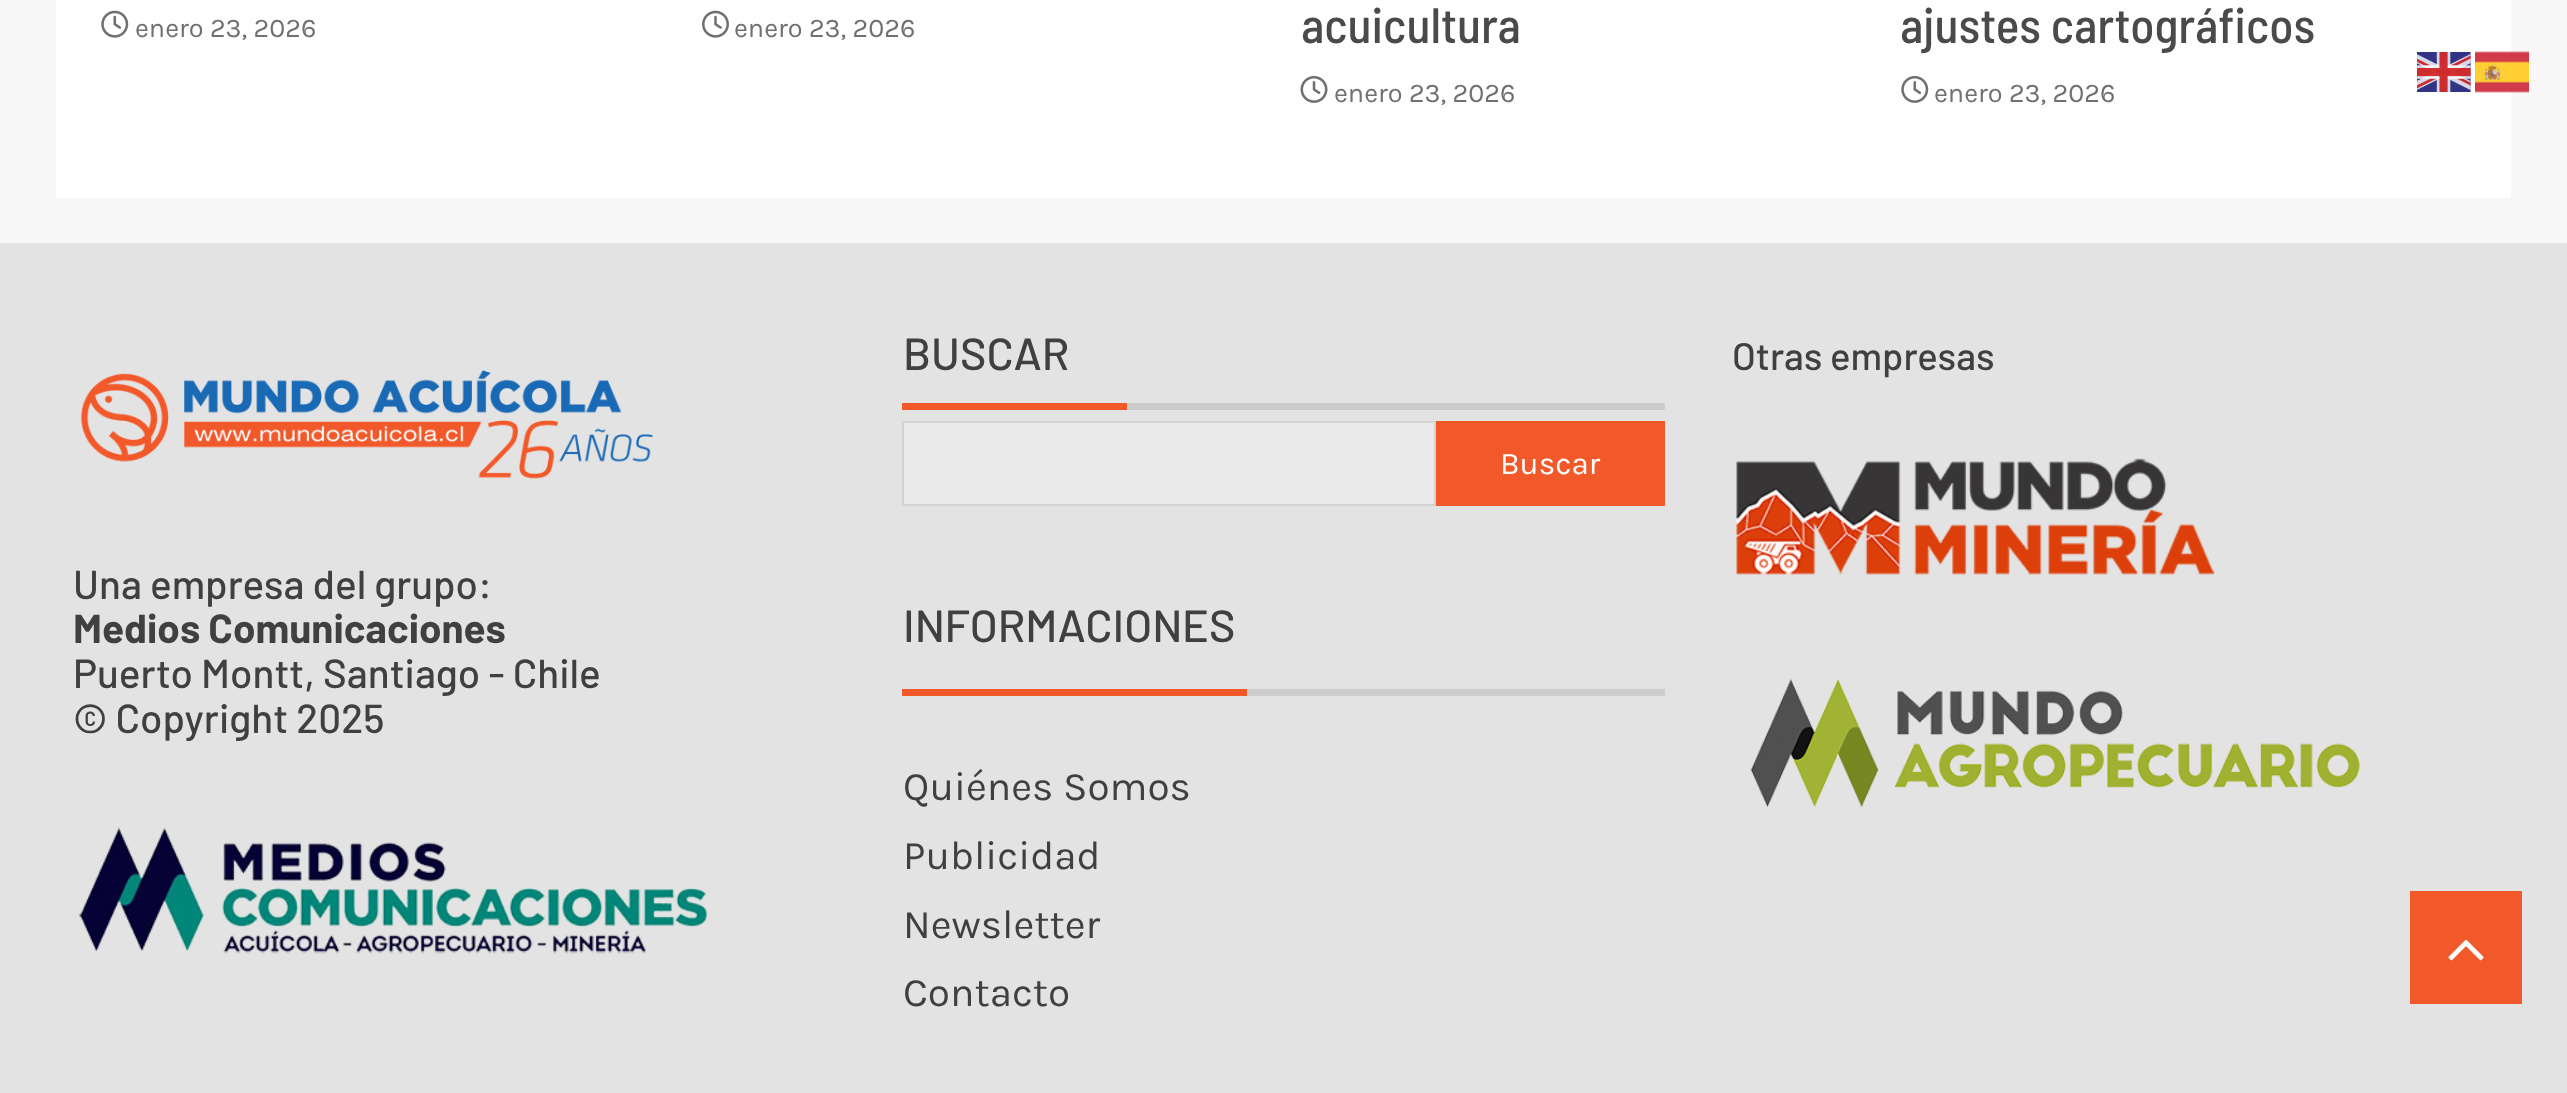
(async () => {
    const canvas = document.querySelector("canvas");
    canvas.width = 2567;
    canvas.height = 1093;
    const context = canvas.getContext("2d");
    context.miterLimit = 4;
    context.fontKerning = "normal";
    function write(s, x, y, font, color) {
        context.font = font;
        context.fillStyle = color;
        context.fillText(s, x, y);
    }
    function block(x, y, w, h, color) {
        context.fillStyle = color;
        context.fillRect(x, y, w, h);
    }
    async function photo(src, x, y, w, h) {
        const img = new Image();
        img.src = src;
        await img.decode();
        context.drawImage(img, x, y, w, h);
    }

    block(0, 0, 2567, 1093, "rgb(247, 247, 247)");
    block(56, 0, 2455, 198, "rgb(255, 255, 255)");
    await photo("media/1.png", 101, 10, 28, 28);
    write("enero 23, 2026", 135, 37, "27px Karla", "rgb(112, 112, 112)");
    await photo("media/2.png", 702, 10, 27, 28);
    write("enero 23, 2026", 734, 37, "27px Karla", "rgb(112, 112, 112)");
    write("acuicultura", 1301, 43, "500 49.5px Barlow Semi Condensed", "rgb(74, 74, 74)");
    await photo("media/3.png", 1300, 76, 28, 27);
    write("enero 23, 2026", 1334, 102, "27px Karla", "rgb(112, 112, 112)");
    write("ajustes cartográficos", 1900, 43, "500 49.5px Barlow Semi Condensed", "rgb(74, 74, 74)");
    await photo("media/4.png", 1901, 75, 28, 28);
    write("enero 23, 2026", 1934, 102, "27px Karla", "rgb(112, 112, 112)");
    block(0, 243, 2567, 850, "rgb(227, 227, 227)");
    write("BUSCAR", 903, 370, "500 45px Barlow", "rgb(64, 64, 64)");
    block(902, 403, 225, 7, "rgb(241, 89, 42)");
    block(1127, 403, 538, 7, "rgb(204, 204, 204)");
    context.fillStyle = "rgb(234, 234, 234)";
    context.beginPath();
    context.rect(903, 422, 532, 83);
    context.fill();
    context.strokeStyle = "rgb(211, 211, 211)";
    context.lineWidth = 2;
    context.stroke();
    block(1436, 421, 229, 85, "rgb(241, 89, 42)");
    write("Buscar", 1500, 474, "31.5px Karla", "rgb(255, 255, 255)");
    write("INFORMACIONES", 903, 642, "500 45px Barlow", "rgb(64, 64, 64)");
    block(902, 689, 345, 7, "rgb(241, 89, 42)");
    block(1247, 689, 418, 7, "rgb(204, 204, 204)");
    write("Quiénes Somos", 903, 800, "40.5px Karla", "rgb(64, 64, 64)");
    write("Publicidad", 903, 869, "40.5px Karla", "rgb(64, 64, 64)");
    write("Newsletter", 903, 938, "40.5px Karla", "rgb(64, 64, 64)");
    write("Contacto", 903, 1006, "40.5px Karla", "rgb(64, 64, 64)");
    write("Otras empresas", 1732, 370, "500 38.25px Barlow", "rgb(64, 64, 64)");
    await photo("media/5.png", 1736, 458, 479, 117);
    await photo("media/6.png", 1750, 679, 610, 129);
    await photo("media/7.png", 80, 370, 573, 109);
    write("Una empresa del grupo:", 73, 599, "500 40.5px Barlow", "rgb(64, 64, 64)");
    write("Medios Comunicaciones", 73, 643, "bold 40.5px Barlow", "rgb(64, 64, 64)");
    write("Puerto Montt, Santiago - Chile", 73, 688, "500 40.5px Barlow", "rgb(64, 64, 64)");
    write("© Copyright 2025", 73, 733, "500 40.5px Barlow", "rgb(64, 64, 64)");
    await photo("media/8.png", 79, 827, 629, 127);
    await photo("media/9.png", 2417, 52, 54, 40);
    await photo("media/10.png", 2475, 51, 54, 42);
    block(2410, 891, 112, 113, "rgb(241, 89, 42)");
    await photo("media/11.png", 2448, 939, 36, 22);
})();
